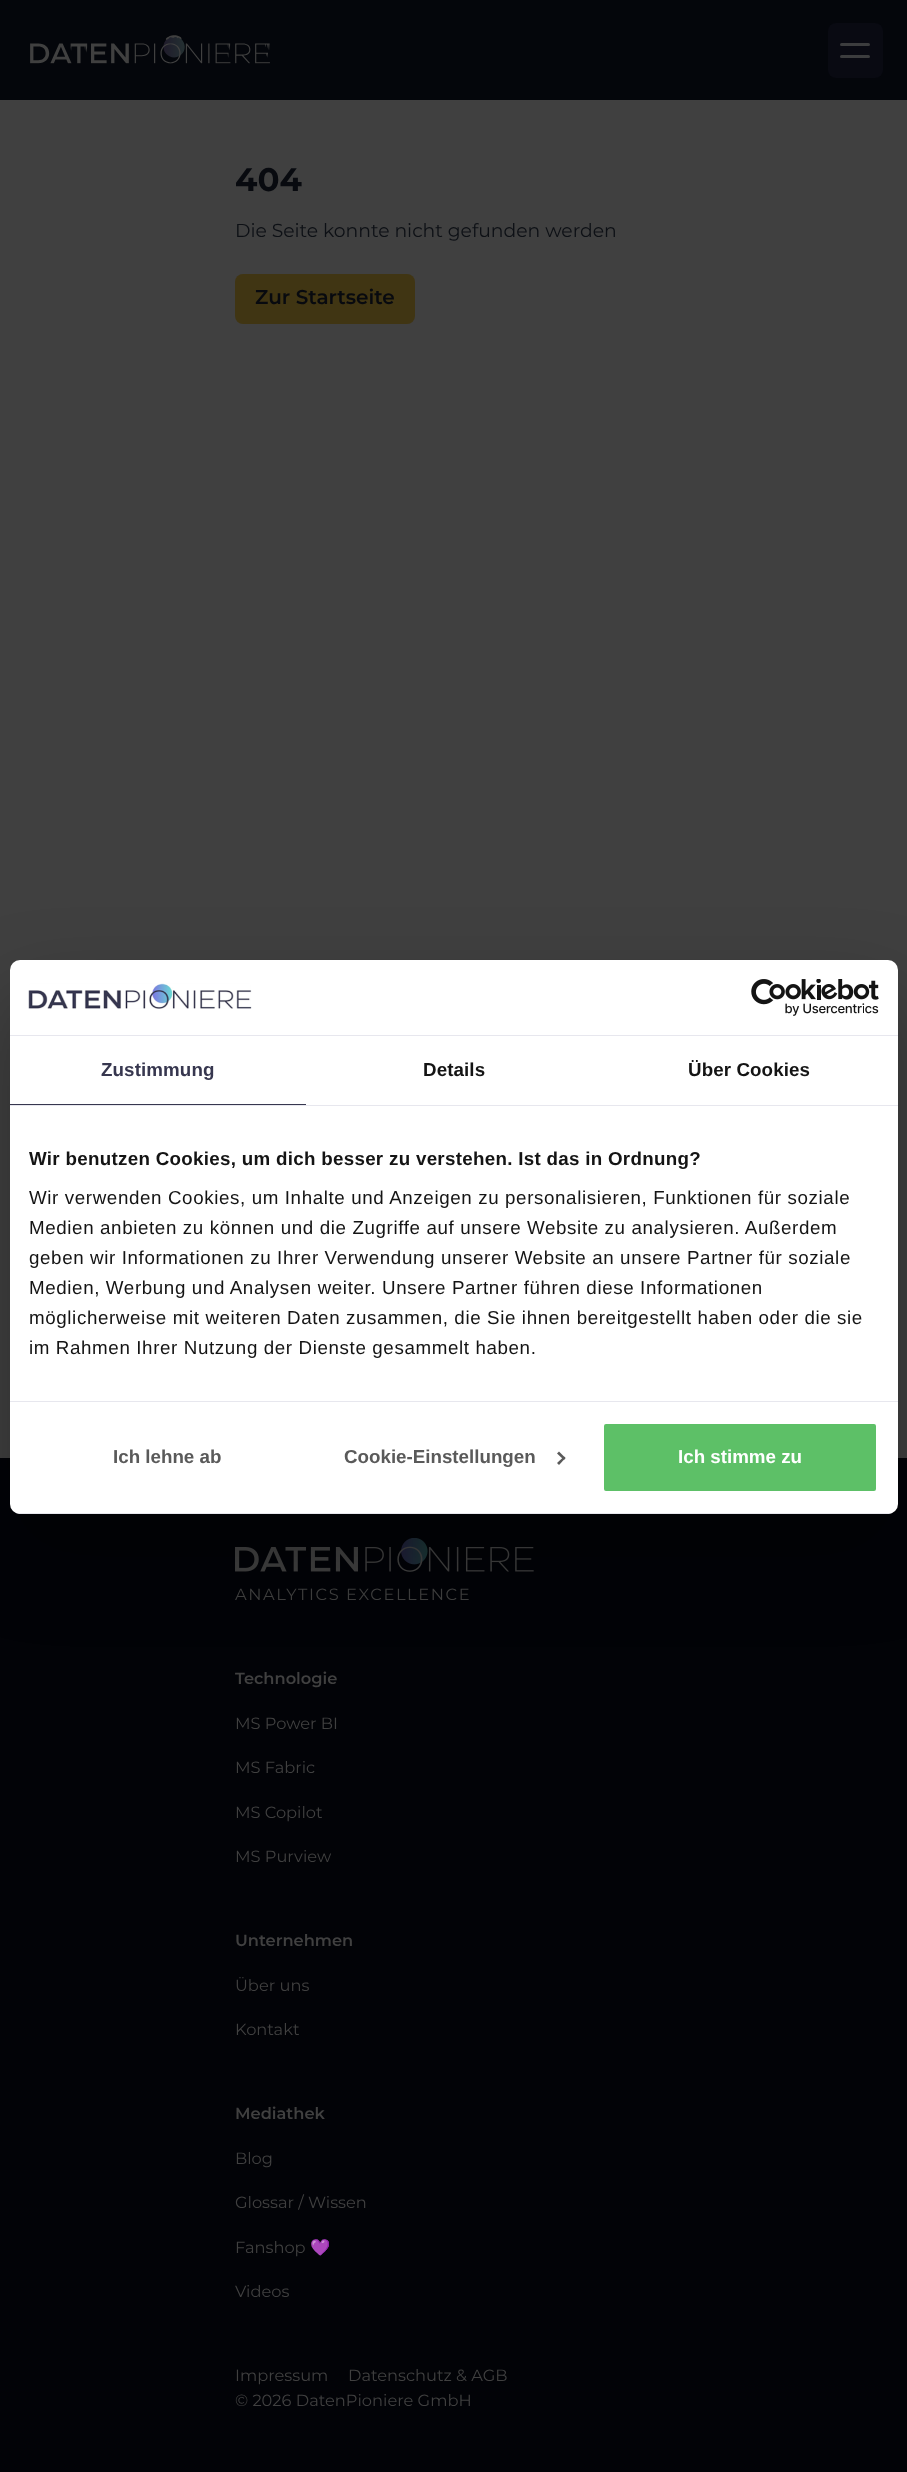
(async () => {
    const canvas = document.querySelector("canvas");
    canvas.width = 907;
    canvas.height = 2472;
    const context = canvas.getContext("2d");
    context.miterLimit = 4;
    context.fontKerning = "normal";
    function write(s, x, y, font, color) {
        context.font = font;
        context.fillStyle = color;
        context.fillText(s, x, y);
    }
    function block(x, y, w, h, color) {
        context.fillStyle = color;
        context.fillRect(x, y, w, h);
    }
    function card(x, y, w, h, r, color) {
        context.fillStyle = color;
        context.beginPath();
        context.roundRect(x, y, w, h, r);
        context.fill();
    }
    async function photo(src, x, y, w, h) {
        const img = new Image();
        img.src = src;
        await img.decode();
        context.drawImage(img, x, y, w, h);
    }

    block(0, 0, 907, 2472, "rgb(64, 64, 64)");
    block(0, 0, 907, 100, "rgb(4, 6, 11)");
    await photo("media/1.png", 30, 35, 240, 29);
    card(828, 23, 55, 55, 8, "rgb(9, 10, 18)");
    card(840, 43, 30, 3, 1.5, "rgb(60, 61, 62)");
    card(840, 55, 30, 3, 1.5, "rgb(60, 61, 62)");
    write("404", 235, 191, "bold 32.5px Montserrat", "rgb(8, 10, 15)");
    write("Die Seite konnte nicht gefunden werden", 235, 237, "18.75px Montserrat", "rgb(13, 16, 21)");
    card(235, 274, 180, 50, 8, "rgb(64, 53, 19)");
    write("Zur Startseite", 255, 304, "600 20px Montserrat", "rgb(8, 10, 15)");
    block(0, 1458, 907, 1014, "rgb(2, 3, 7)");
    await photo("media/2.png", 235, 1538, 299, 34);
    context.letterSpacing = "1.6px";
    write("ANALYTICS EXCELLENCE", 235, 1600, "16.25px Montserrat", "rgb(64, 64, 64)");
    context.letterSpacing = "0px";
    write("Technologie", 235, 1684, "600 16.25px Montserrat", "rgb(64, 64, 64)");
    write("MS Power BI", 235, 1729, "16.25px Montserrat", "rgb(64, 64, 64)");
    write("MS Fabric", 235, 1773, "16.25px Montserrat", "rgb(64, 64, 64)");
    write("MS Copilot", 235, 1818, "16.25px Montserrat", "rgb(64, 64, 64)");
    write("MS Purview", 235, 1862, "16.25px Montserrat", "rgb(64, 64, 64)");
    write("Unternehmen", 235, 1946, "600 16.25px Montserrat", "rgb(64, 64, 64)");
    write("Über uns", 235, 1991, "16.25px Montserrat", "rgb(64, 64, 64)");
    write("Kontakt", 235, 2035, "16.25px Montserrat", "rgb(64, 64, 64)");
    write("Mediathek", 235, 2119, "600 16.25px Montserrat", "rgb(64, 64, 64)");
    write("Blog", 235, 2164, "16.25px Montserrat", "rgb(64, 64, 64)");
    write("Glossar / Wissen", 235, 2208, "16.25px Montserrat", "rgb(64, 64, 64)");
    write("Fanshop", 235, 2253, "16.25px Montserrat", "rgb(64, 64, 64)");
    write("💜", 310, 2253, "16.25px Noto Color Emoji", "rgb(64, 64, 64)");
    write("Videos", 235, 2297, "16.25px Montserrat", "rgb(64, 64, 64)");
    write("Impressum", 235, 2381, "16.25px Montserrat", "rgb(64, 64, 64)");
    write("Datenschutz & AGB", 348, 2381, "16.25px Montserrat", "rgb(64, 64, 64)");
    write("© 2026 DatenPioniere GmbH", 235, 2406, "16.25px Montserrat", "rgb(64, 64, 64)");
    context.fillStyle = "rgba(0, 0, 0, 0.3)";
    context.filter = "blur(42.5px)";
    context.beginPath();
    context.roundRect(10, 1000, 888, 554, 10);
    context.fill();
    context.filter = "none";
    card(10, 960, 888, 554, 10, "rgb(255, 255, 255)");
    block(10, 1035, 888, 1, "rgb(231, 231, 238)");
    await photo("media/3.png", 28, 983, 224, 26);
    await photo("media/4.png", 751, 979, 128, 37);
    block(10, 1105, 888, 1, "rgb(231, 231, 238)");
    block(10, 1104, 296, 1, "rgb(55, 55, 79)");
    context.letterSpacing = "0.1px";
    write("Zustimmung", 101, 1076, "bold 18.75px Liberation Sans", "rgb(55, 55, 79)");
    write("Details", 423, 1076, "bold 18.75px Liberation Sans", "rgb(20, 20, 20)");
    write("Über Cookies", 688, 1076, "bold 18.75px Liberation Sans", "rgb(20, 20, 20)");
    block(10, 1401, 888, 1, "rgb(231, 231, 238)");
    context.letterSpacing = "0.3px";
    write("Wir benutzen Cookies, um dich besser zu verstehen. Ist das in Ordnung?", 29, 1165, "bold 18.75px Liberation Sans", "rgb(20, 20, 20)");
    context.letterSpacing = "0.62px";
    write("Wir verwenden Cookies, um Inhalte und Anzeigen zu personalisieren, Funktionen für soziale", 29, 1204, "18.75px Liberation Sans", "rgb(20, 20, 20)");
    write("Medien anbieten zu können und die Zugriffe auf unsere Website zu analysieren. Außerdem", 29, 1234, "18.75px Liberation Sans", "rgb(20, 20, 20)");
    write("geben wir Informationen zu Ihrer Verwendung unserer Website an unsere Partner für soziale", 29, 1264, "18.75px Liberation Sans", "rgb(20, 20, 20)");
    write("Medien, Werbung und Analysen weiter. Unsere Partner führen diese Informationen", 29, 1294, "18.75px Liberation Sans", "rgb(20, 20, 20)");
    write("möglicherweise mit weiteren Daten zusammen, die Sie ihnen bereitgestellt haben oder die sie", 29, 1324, "18.75px Liberation Sans", "rgb(20, 20, 20)");
    write("im Rahmen Ihrer Nutzung der Dienste gesammelt haben.", 29, 1354, "18.75px Liberation Sans", "rgb(20, 20, 20)");
    context.save();
    context.beginPath();
    context.roundRect(10, 960, 888, 554, 10);
    context.clip();
    block(10, 1513, 888, 1, "rgb(231, 231, 238)");
    context.restore();
    context.letterSpacing = "0px";
    write("Ich lehne ab", 113, 1463, "bold 18.75px Liberation Sans", "rgb(90, 90, 90)");
    write("Cookie-Einstellungen", 344, 1463, "bold 18.75px Liberation Sans", "rgb(90, 90, 90)");
    context.beginPath();
    context.moveTo(559, 1451.5);
    context.lineTo(565.5, 1458);
    context.lineTo(564, 1460);
    context.lineTo(557, 1453.5);
    context.closePath();
    context.fill();
    context.beginPath();
    context.moveTo(564, 1456.5);
    context.lineTo(565.5, 1458);
    context.lineTo(559, 1465);
    context.lineTo(557, 1463);
    context.closePath();
    context.fill();
    context.fillStyle = "rgb(93, 192, 103)";
    context.beginPath();
    context.roundRect(602.5, 1422.5, 275, 70, 3.5);
    context.fill();
    context.strokeStyle = "rgb(255, 255, 255)";
    context.lineWidth = 3;
    context.stroke();
    write("Ich stimme zu", 678, 1463, "bold 18.75px Liberation Sans", "rgb(255, 255, 255)");
})();
